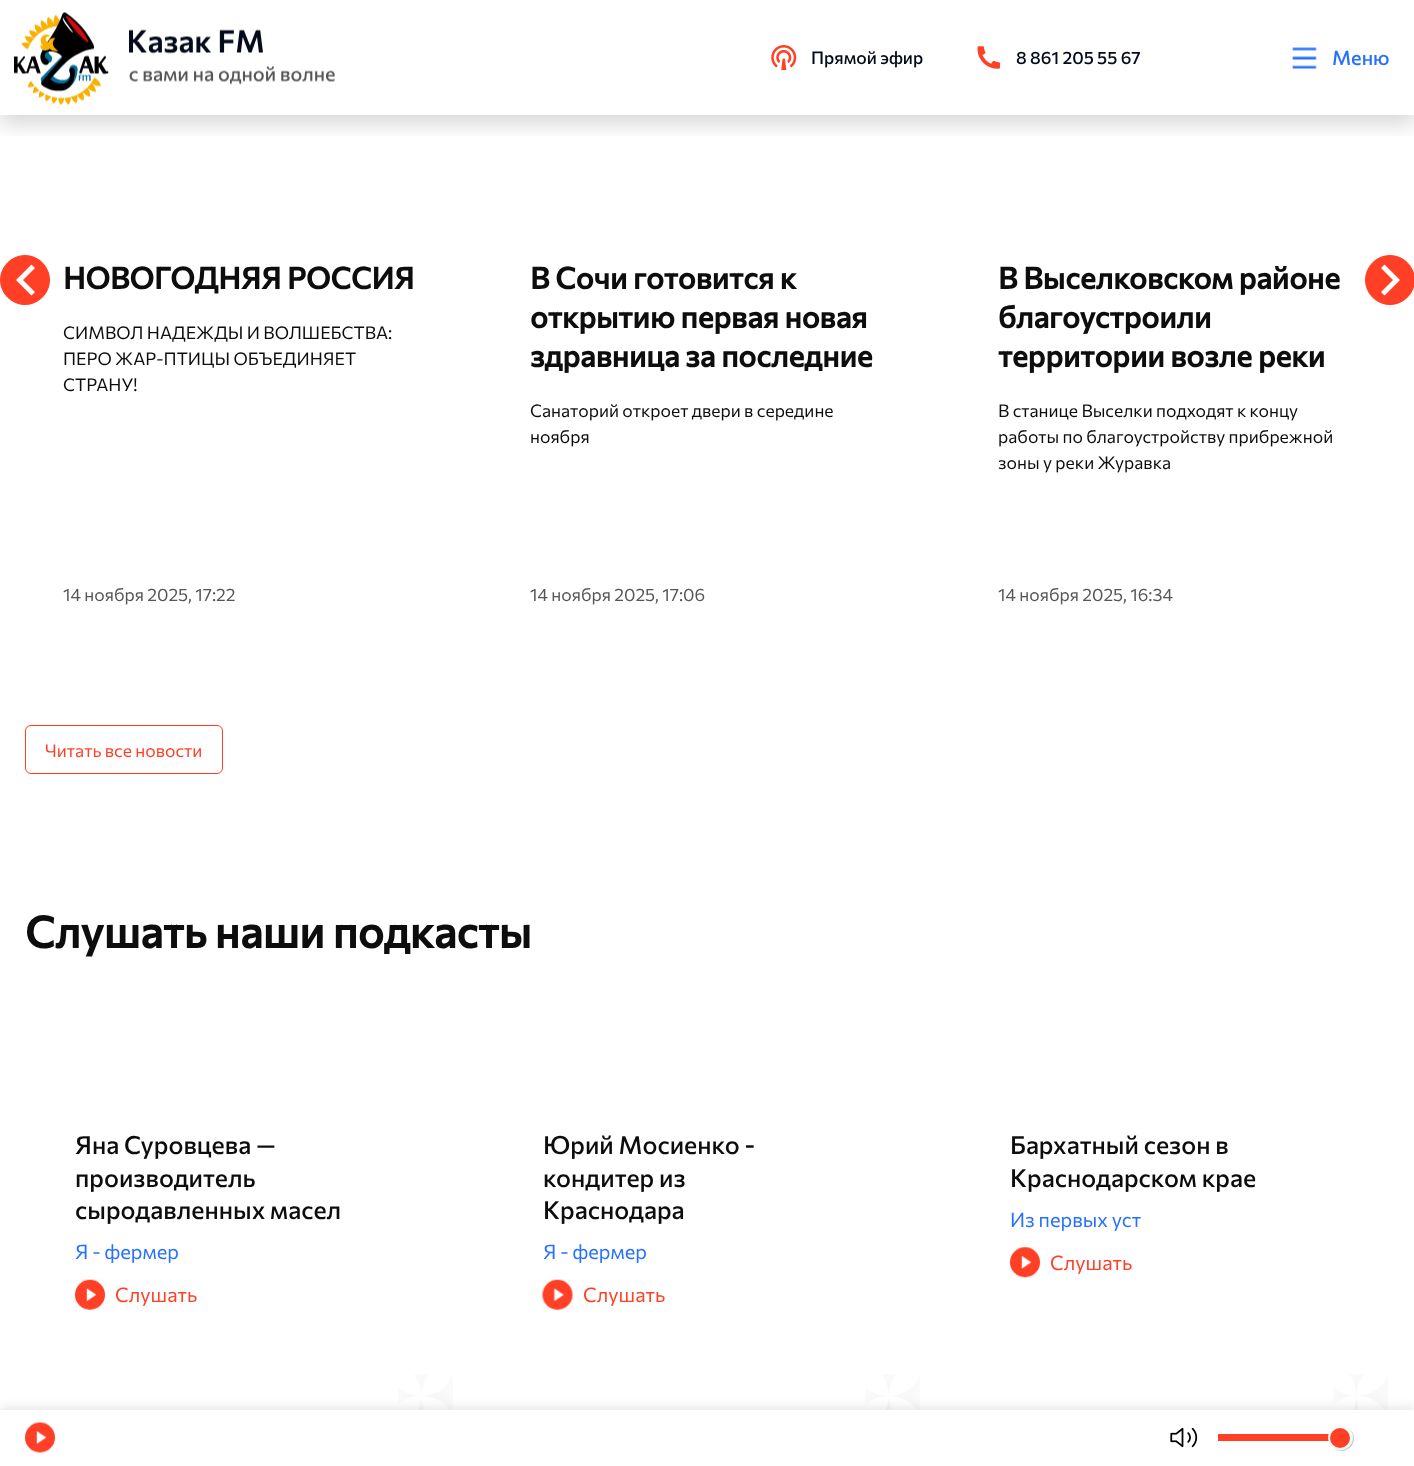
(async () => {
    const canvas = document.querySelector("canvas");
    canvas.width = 1414;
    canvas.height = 1466;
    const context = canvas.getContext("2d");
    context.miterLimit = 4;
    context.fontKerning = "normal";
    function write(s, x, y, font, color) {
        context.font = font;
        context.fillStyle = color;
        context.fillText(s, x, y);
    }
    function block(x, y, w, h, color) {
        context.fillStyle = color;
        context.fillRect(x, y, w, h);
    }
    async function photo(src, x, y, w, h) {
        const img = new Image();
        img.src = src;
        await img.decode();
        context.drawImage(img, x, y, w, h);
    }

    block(0, 0, 1414, 1466, "rgb(255, 255, 255)");
    context.save();
    context.beginPath();
    context.rect(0, 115, 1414, 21);
    context.clip();
    context.fillStyle = "rgba(0, 0, 0, 0.15)";
    context.filter = "blur(10px)";
    context.beginPath();
    context.rect(0, 10, 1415, 115);
    context.fill();
    context.filter = "none";
    context.restore();
    await photo("media/1.png", 14, 12, 95, 94);
    await photo("media/2.png", 129, 29, 206, 56);
    await photo("media/3.png", 771, 45, 26, 25);
    write("Прямой эфир", 811, 64, "500 17.5px Commissioner", "rgb(4, 11, 26)");
    await photo("media/4.png", 977, 46, 23, 23);
    write("8 861 205 55 67", 1016, 64, "500 17.5px Commissioner", "rgb(4, 11, 26)");
    await photo("media/5.png", 1292, 47, 25, 22);
    write("Меню", 1332, 65, "500 20px Commissioner", "rgb(38, 112, 255)");
    context.fillStyle = "rgb(255, 64, 38)";
    context.beginPath();
    context.arc(25, 280, 24.5, 0, Math.PI * 2);
    context.fill();
    context.strokeStyle = "rgb(255, 64, 38)";
    context.stroke();
    context.fillStyle = "rgb(255, 255, 255)";
    context.beginPath();
    context.moveTo(23, 280);
    context.lineTo(35, 268);
    context.lineTo(31.5, 264.5);
    context.lineTo(16, 280);
    context.lineTo(31.5, 295.5);
    context.lineTo(35, 292);
    context.closePath();
    context.fill();
    write("НОВОГОДНЯЯ РОССИЯ", 63, 289, "bold 30px Commissioner", "rgb(13, 13, 13)");
    write("СИМВОЛ НАДЕЖДЫ И ВОЛШЕБСТВА:", 63, 339, "17.5px Commissioner", "rgb(13, 13, 13)");
    write("ПЕРО ЖАР-ПТИЦЫ ОБЪЕДИНЯЕТ", 63, 365, "17.5px Commissioner", "rgb(13, 13, 13)");
    write("СТРАНУ!", 63, 391, "17.5px Commissioner", "rgb(13, 13, 13)");
    write("14 ноября 2025, 17:22", 63, 601, "17.5px Commissioner", "rgb(86, 86, 86)");
    write("В Сочи готовится к", 530, 289, "bold 30px Commissioner", "rgb(13, 13, 13)");
    write("открытию первая новая", 530, 328, "bold 30px Commissioner", "rgb(13, 13, 13)");
    write("здравница за последние", 530, 367, "bold 30px Commissioner", "rgb(13, 13, 13)");
    write("Санаторий откроет двери в середине", 530, 417, "17.5px Commissioner", "rgb(13, 13, 13)");
    write("ноября", 530, 443, "17.5px Commissioner", "rgb(13, 13, 13)");
    write("14 ноября 2025, 17:06", 530, 601, "17.5px Commissioner", "rgb(86, 86, 86)");
    write("В Выселковском районе", 998, 289, "bold 30px Commissioner", "rgb(13, 13, 13)");
    write("благоустроили", 998, 328, "bold 30px Commissioner", "rgb(13, 13, 13)");
    write("территории возле реки", 998, 367, "bold 30px Commissioner", "rgb(13, 13, 13)");
    write("В станице Выселки подходят к концу", 998, 417, "17.5px Commissioner", "rgb(13, 13, 13)");
    write("работы по благоустройству прибрежной", 998, 443, "17.5px Commissioner", "rgb(13, 13, 13)");
    write("зоны у реки Журавка", 998, 469, "17.5px Commissioner", "rgb(13, 13, 13)");
    write("14 ноября 2025, 16:34", 998, 601, "17.5px Commissioner", "rgb(86, 86, 86)");
    context.fillStyle = "rgb(255, 64, 38)";
    context.beginPath();
    context.arc(1390, 280, 24.5, 0, Math.PI * 2);
    context.fill();
    context.stroke();
    context.fillStyle = "rgb(255, 255, 255)";
    context.beginPath();
    context.moveTo(1393, 280);
    context.lineTo(1381, 268);
    context.lineTo(1384.5, 264.5);
    context.lineTo(1400, 280);
    context.lineTo(1384.5, 295.5);
    context.lineTo(1381, 292);
    context.closePath();
    context.fill();
    context.beginPath();
    context.roundRect(25.5, 725.5, 197, 48, 5.5);
    context.stroke();
    write("Читать все новости", 45, 757, "17.5px Commissioner", "rgb(255, 64, 38)");
    write("Слушать наши подкасты", 25, 948, "bold 43.75px Commissioner", "rgb(13, 13, 13)");
    write("Яна Суровцева —", 75, 1154, "500 25px Commissioner", "rgb(13, 13, 13)");
    write("производитель", 75, 1187, "500 25px Commissioner", "rgb(13, 13, 13)");
    write("сыродавленных масел", 75, 1219, "500 25px Commissioner", "rgb(13, 13, 13)");
    write("Я - фермер", 75, 1259, "20px Commissioner", "rgb(38, 112, 255)");
    await photo("media/6.png", 75, 1279, 30, 31);
    write("Слушать", 115, 1302, "20px Commissioner", "rgb(255, 64, 38)");
    await photo("media/7.png", 398, 1374, 55, 36);
    write("Юрий Мосиенко -", 543, 1154, "500 25px Commissioner", "rgb(13, 13, 13)");
    write("кондитер из", 543, 1187, "500 25px Commissioner", "rgb(13, 13, 13)");
    write("Краснодара", 543, 1219, "500 25px Commissioner", "rgb(13, 13, 13)");
    write("Я - фермер", 543, 1259, "20px Commissioner", "rgb(38, 112, 255)");
    await photo("media/8.png", 542, 1279, 31, 31);
    write("Слушать", 583, 1302, "20px Commissioner", "rgb(255, 64, 38)");
    await photo("media/9.png", 865, 1374, 55, 36);
    write("Бархатный сезон в", 1010, 1154, "500 25px Commissioner", "rgb(13, 13, 13)");
    write("Краснодарском крае", 1010, 1187, "500 25px Commissioner", "rgb(13, 13, 13)");
    write("Из первых уст", 1010, 1227, "20px Commissioner", "rgb(38, 112, 255)");
    await photo("media/10.png", 1010, 1247, 30, 31);
    write("Слушать", 1050, 1270, "20px Commissioner", "rgb(255, 64, 38)");
    await photo("media/7.png", 1333, 1374, 55, 36);
    context.fillStyle = "rgba(0, 0, 0, 0.08)";
    context.filter = "blur(4px)";
    context.beginPath();
    context.rect(0, 1406, 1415, 57);
    context.fill();
    context.filter = "none";
    block(0, 1410, 1414, 56, "rgb(255, 255, 255)");
    await photo("media/11.png", 25, 1422, 30, 31);
    await photo("media/12.png", 1170, 1427, 28, 21);
    block(1218, 1434, 111, 7, "rgb(255, 64, 38)");
    context.fillStyle = "rgb(204, 204, 204)";
    context.beginPath();
    context.moveTo(1334, 1448.5);
    context.bezierCurveTo(1343.5, 1456, 1358, 1445.5, 1353, 1433.5);
    context.bezierCurveTo(1352, 1431, 1350, 1429, 1347.5, 1427.5);
    context.bezierCurveTo(1360, 1437, 1347, 1456, 1334, 1448.5);
    context.closePath();
    context.fill();
    context.fillStyle = "rgb(255, 255, 255)";
    context.beginPath();
    context.arc(1340.5, 1437.5, 12, 0, Math.PI * 2);
    context.fill();
    context.strokeStyle = "rgb(245, 245, 245)";
    context.stroke();
    context.fillStyle = "rgb(255, 64, 38)";
    context.beginPath();
    context.arc(1340, 1438, 10, 0, Math.PI * 2);
    context.fill();
})();
